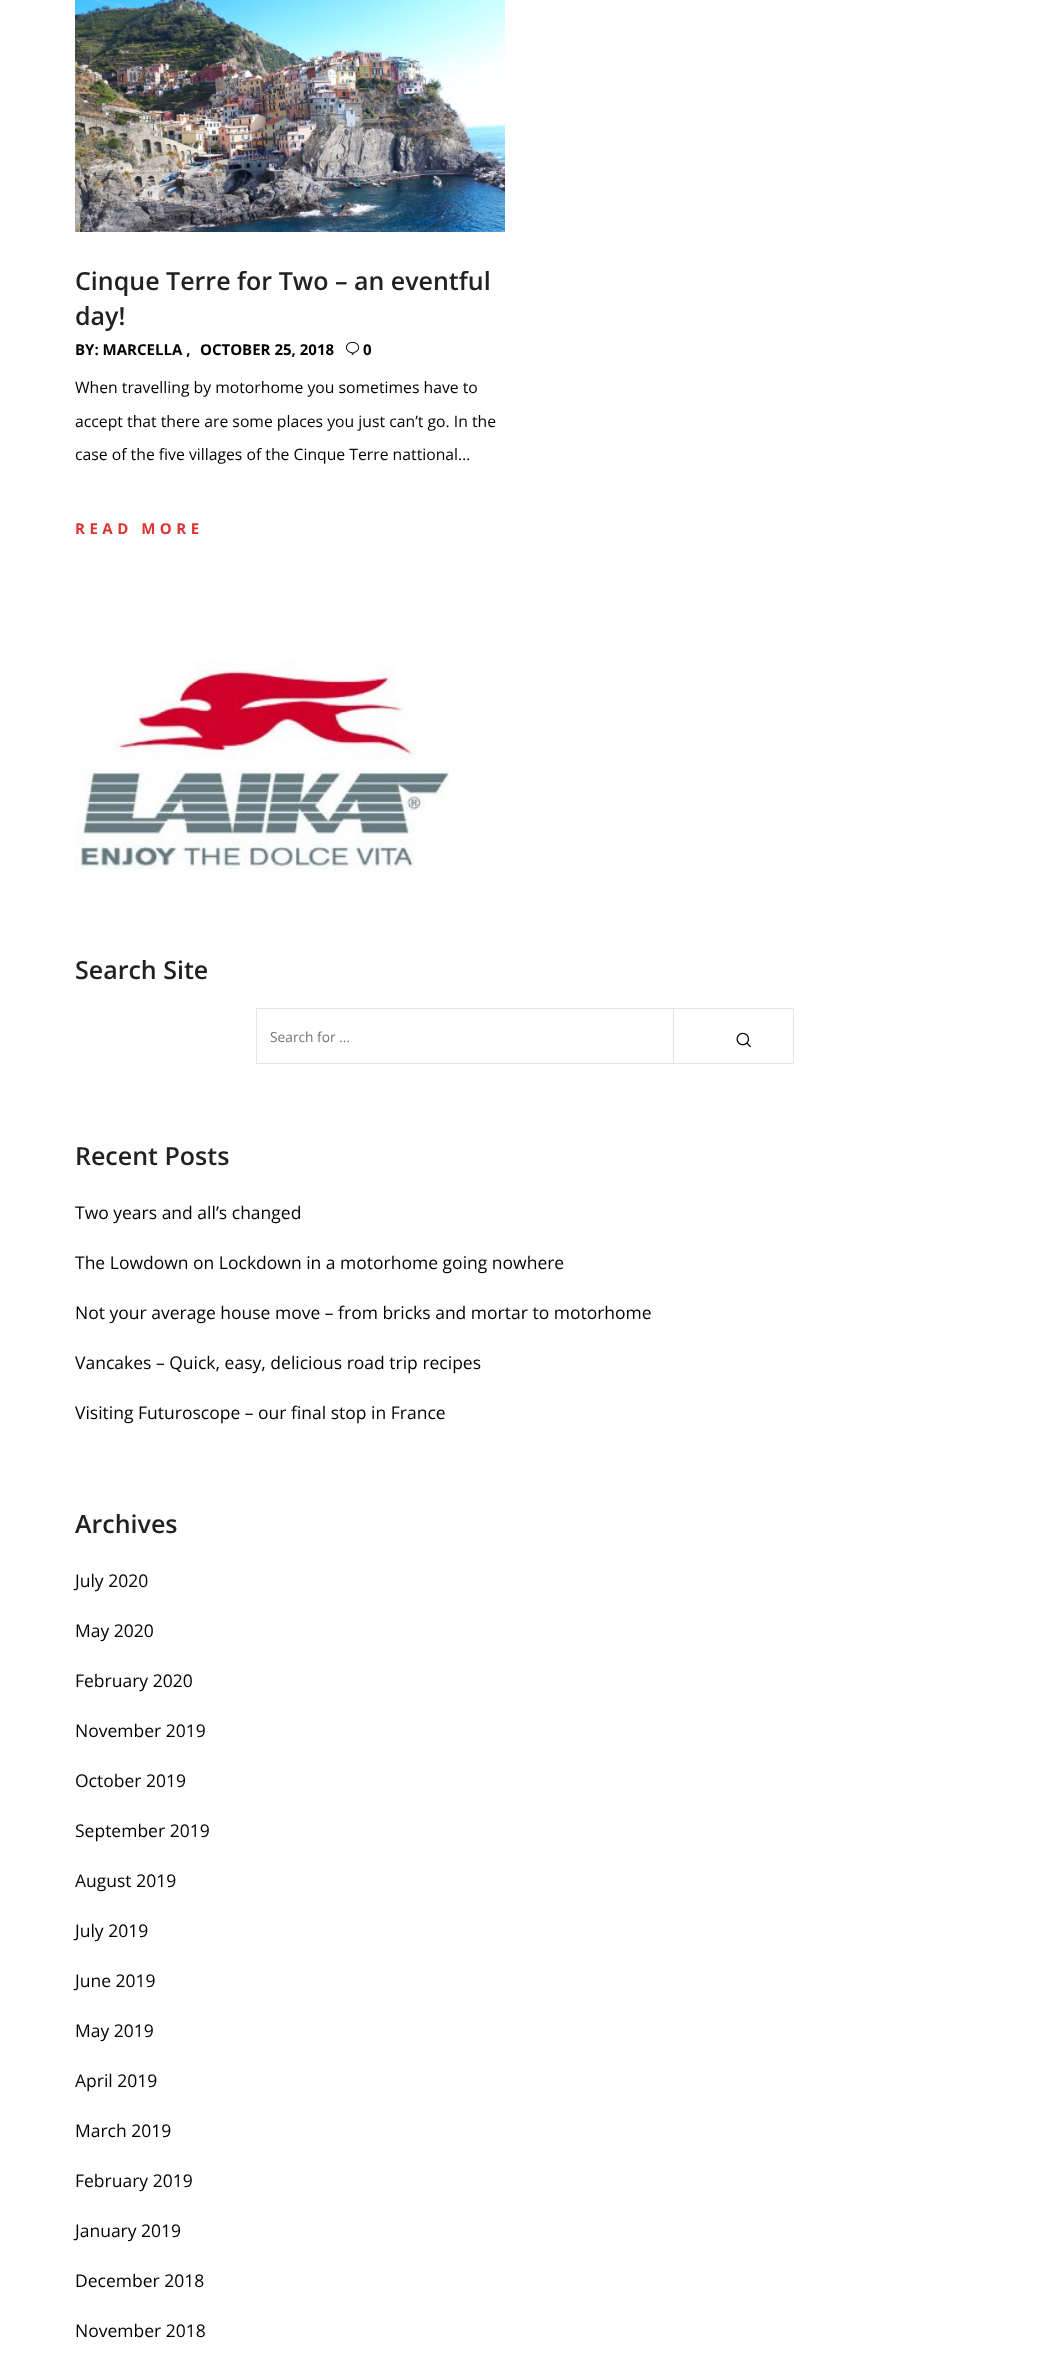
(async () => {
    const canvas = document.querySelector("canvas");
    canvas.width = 1049;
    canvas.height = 2363;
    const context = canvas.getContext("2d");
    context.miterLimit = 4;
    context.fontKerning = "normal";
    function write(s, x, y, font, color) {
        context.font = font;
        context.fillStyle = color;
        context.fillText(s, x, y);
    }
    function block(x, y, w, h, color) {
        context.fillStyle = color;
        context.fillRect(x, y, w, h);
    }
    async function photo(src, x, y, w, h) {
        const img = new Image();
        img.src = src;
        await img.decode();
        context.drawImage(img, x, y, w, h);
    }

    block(0, 0, 1049, 2363, "rgb(255, 255, 255)");
    await photo("media/1.png", 75, 0, 430, 232);
    write("Cinque Terre for Two – an eventful", 75, 290, "600 25px Open Sans", "rgb(33, 33, 33)");
    write("day!", 75, 325, "600 25px Open Sans", "rgb(33, 33, 33)");
    write("BY: MARCELLA ,", 75, 355, "bold 15px Open Sans", "rgb(0, 0, 0)");
    write("OCTOBER 25, 2018", 200, 355, "bold 15px Open Sans", "rgb(0, 0, 0)");
    await photo("media/2.png", 345, 341, 15, 14);
    write("0", 363, 355, "bold 15px Open Sans", "rgb(0, 0, 0)");
    write("When travelling by motorhome you sometimes have to", 75, 393, "15.75px Open Sans", "rgb(0, 0, 0)");
    write("accept that there are some places you just can’t go. In the", 75, 427, "15.75px Open Sans", "rgb(0, 0, 0)");
    write("case of the five villages of the Cinque Terre nattional…", 75, 460, "15.75px Open Sans", "rgb(0, 0, 0)");
    context.letterSpacing = "4.5px";
    write("READ MORE", 75, 534, "bold 15px Open Sans", "rgb(221, 51, 51)");
    await photo("media/3.png", 75, 659, 375, 218);
    context.letterSpacing = "0px";
    write("Search Site", 75, 979, "600 25px Open Sans", "rgb(33, 33, 33)");
    context.strokeStyle = "rgb(228, 228, 228)";
    context.strokeRect(256.5, 1008.5, 537, 55);
    write("Search for ...", 270, 1042, "13.75px Open Sans", "rgb(117, 117, 117)");
    block(673, 1008, 1, 56, "rgb(228, 228, 228)");
    await photo("media/4.png", 736, 1032, 15, 16);
    write("Recent Posts", 75, 1165, "600 25px Open Sans", "rgb(33, 33, 33)");
    write("Two years and all’s changed", 75, 1219, "17.5px Open Sans", "rgb(0, 0, 0)");
    write("The Lowdown on Lockdown in a motorhome going nowhere", 75, 1269, "17.5px Open Sans", "rgb(0, 0, 0)");
    write("Not your average house move – from bricks and mortar to motorhome", 75, 1319, "17.5px Open Sans", "rgb(0, 0, 0)");
    write("Vancakes – Quick, easy, delicious road trip recipes", 75, 1369, "17.5px Open Sans", "rgb(0, 0, 0)");
    write("Visiting Futuroscope – our final stop in France", 75, 1419, "17.5px Open Sans", "rgb(0, 0, 0)");
    write("Archives", 75, 1533, "600 25px Open Sans", "rgb(33, 33, 33)");
    write("July 2020", 75, 1587, "17.5px Open Sans", "rgb(0, 0, 0)");
    write("May 2020", 75, 1637, "17.5px Open Sans", "rgb(0, 0, 0)");
    write("February 2020", 75, 1687, "17.5px Open Sans", "rgb(0, 0, 0)");
    write("November 2019", 75, 1737, "17.5px Open Sans", "rgb(0, 0, 0)");
    write("October 2019", 75, 1787, "17.5px Open Sans", "rgb(0, 0, 0)");
    write("September 2019", 75, 1837, "17.5px Open Sans", "rgb(0, 0, 0)");
    write("August 2019", 75, 1887, "17.5px Open Sans", "rgb(0, 0, 0)");
    write("July 2019", 75, 1937, "17.5px Open Sans", "rgb(0, 0, 0)");
    write("June 2019", 75, 1987, "17.5px Open Sans", "rgb(0, 0, 0)");
    write("May 2019", 75, 2037, "17.5px Open Sans", "rgb(0, 0, 0)");
    write("April 2019", 75, 2087, "17.5px Open Sans", "rgb(0, 0, 0)");
    write("March 2019", 75, 2137, "17.5px Open Sans", "rgb(0, 0, 0)");
    write("February 2019", 75, 2187, "17.5px Open Sans", "rgb(0, 0, 0)");
    write("January 2019", 75, 2237, "17.5px Open Sans", "rgb(0, 0, 0)");
    write("December 2018", 75, 2287, "17.5px Open Sans", "rgb(0, 0, 0)");
    write("November 2018", 75, 2337, "17.5px Open Sans", "rgb(0, 0, 0)");
})();
